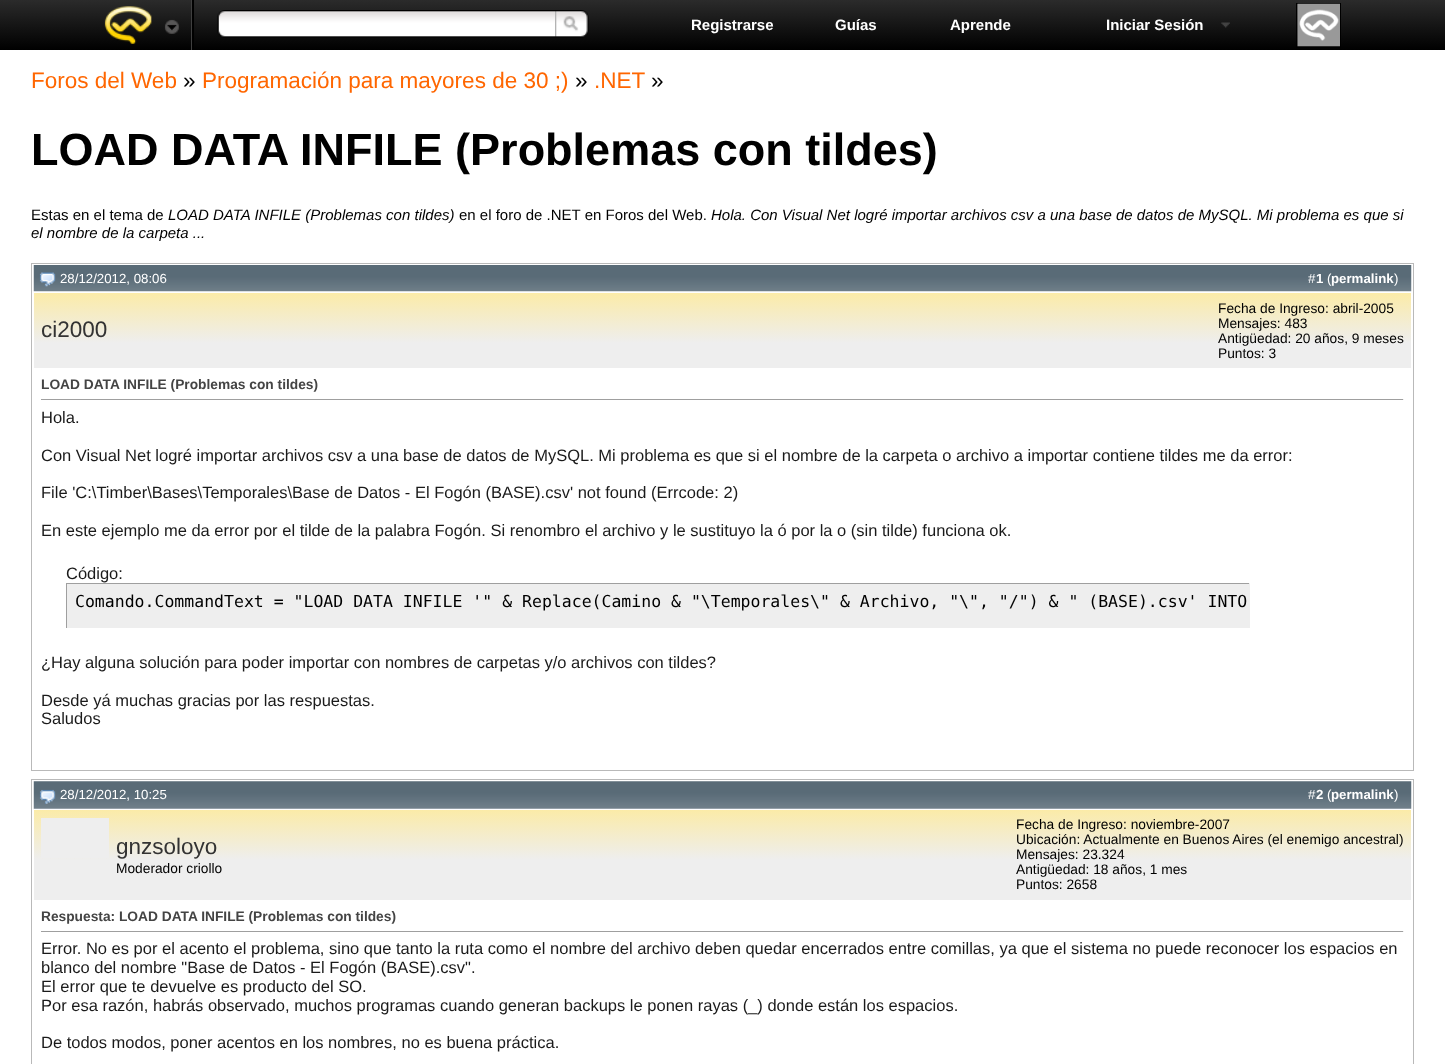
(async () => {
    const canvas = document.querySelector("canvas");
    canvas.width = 1445;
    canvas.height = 1064;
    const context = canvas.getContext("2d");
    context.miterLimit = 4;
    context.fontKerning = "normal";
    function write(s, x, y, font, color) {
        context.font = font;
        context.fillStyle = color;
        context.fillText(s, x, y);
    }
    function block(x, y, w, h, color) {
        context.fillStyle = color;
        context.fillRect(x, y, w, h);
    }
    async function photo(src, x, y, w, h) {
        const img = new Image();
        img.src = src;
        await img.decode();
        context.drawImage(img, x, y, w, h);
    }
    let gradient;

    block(0, 0, 1445, 1064, "rgb(255, 255, 255)");
    gradient = context.createLinearGradient(0, 0, 0, 50);
    gradient.addColorStop(0, "rgb(43, 43, 43)");
    gradient.addColorStop(1, "rgb(0, 0, 0)");
    context.fillStyle = gradient;
    context.fillRect(0, 0, 1445, 50);
    block(192, 0, 2, 50, "rgb(0, 0, 0)");
    block(191, 0, 1, 50, "rgb(63, 63, 63)");
    await photo("media/1.png", 104, 6, 75, 38);
    await photo("media/2.png", 217, 10, 338, 28);
    await photo("media/3.png", 555, 10, 34, 28);
    write("Registrarse", 691, 30, "bold 15px Liberation Sans", "rgb(255, 255, 255)");
    write("Guías", 835, 30, "bold 15px Liberation Sans", "rgb(255, 255, 255)");
    write("Aprende", 950, 30, "bold 15px Liberation Sans", "rgb(255, 255, 255)");
    write("Iniciar Sesión", 1106, 30, "bold 15px Liberation Sans", "rgb(255, 255, 255)");
    await photo("media/4.png", 1221, 22, 9, 6);
    context.strokeStyle = "rgb(0, 0, 0)";
    context.strokeRect(1296.5, 3.5, 44, 44);
    await photo("media/5.png", 1297, 3, 43, 44);
    write("Foros del Web", 31, 88, "22.5px Liberation Sans", "rgb(255, 102, 0)");
    write("Programación para mayores de 30 ;)", 202, 88, "22.5px Liberation Sans", "rgb(255, 102, 0)");
    write(".NET", 594, 88, "22.5px Liberation Sans", "rgb(255, 102, 0)");
    write("»", 651, 88, "22.5px Liberation Sans", "rgb(0, 0, 0)");
    write("LOAD DATA INFILE (Problemas con tildes)", 31, 165, "bold 45px Liberation Sans", "rgb(0, 0, 0)");
    write("»", 183, 88, "22.5px Liberation Sans", "rgb(0, 0, 0)");
    write("»", 575, 88, "22.5px Liberation Sans", "rgb(0, 0, 0)");
    write("Estas en el tema de", 31, 220, "15px Liberation Sans", "rgb(0, 0, 0)");
    write("LOAD DATA INFILE (Problemas con tildes)", 168, 220, "italic 15px Liberation Sans", "rgb(0, 0, 0)");
    write("en el foro de .NET en Foros del Web.", 459, 220, "15px Liberation Sans", "rgb(0, 0, 0)");
    write("Hola. Con Visual Net logré importar archivos csv a una base de datos de MySQL. Mi problema es que si", 711, 220, "italic 15px Liberation Sans", "rgb(0, 0, 0)");
    write("el nombre de la carpeta ...", 31, 238, "italic 15px Liberation Sans", "rgb(0, 0, 0)");
    context.strokeStyle = "rgb(185, 185, 185)";
    context.strokeRect(31.5, 263.5, 1382, 507);
    await photo("media/6.png", 33, 265, 1379, 27);
    await photo("media/7.png", 39, 272, 17, 15);
    write("28/12/2012, 08:06", 60, 283, "13.25px Liberation Sans", "rgb(255, 255, 255)");
    write("#", 1308, 283, "13.25px Liberation Sans", "rgb(255, 255, 255)");
    write("1", 1316, 283, "bold 13.25px Liberation Sans", "rgb(255, 255, 255)");
    write("(", 1327, 283, "13.25px Liberation Sans", "rgb(255, 255, 255)");
    write("permalink", 1331, 283, "bold 13.25px Liberation Sans", "rgb(255, 255, 255)");
    write(")", 1394, 283, "13.25px Liberation Sans", "rgb(255, 255, 255)");
    gradient = context.createLinearGradient(34, 293, 34, 343);
    gradient.addColorStop(0, "rgb(251, 235, 168)");
    gradient.addColorStop(1, "rgb(238, 238, 238)");
    context.fillStyle = gradient;
    context.fillRect(34, 293, 1377, 75);
    write("ci2000", 41, 337, "22.5px Liberation Sans", "rgb(51, 51, 51)");
    write("Fecha de Ingreso: abril-2005", 1218, 313, "13.75px Liberation Sans", "rgb(0, 0, 0)");
    write("Mensajes: 483", 1218, 328, "13.75px Liberation Sans", "rgb(0, 0, 0)");
    write("Antigüedad: 20 años, 9 meses", 1218, 343, "13.75px Liberation Sans", "rgb(0, 0, 0)");
    write("Puntos: 3", 1218, 358, "13.75px Liberation Sans", "rgb(0, 0, 0)");
    write("LOAD DATA INFILE (Problemas con tildes)", 41, 389, "bold 13.75px Liberation Sans", "rgb(68, 68, 68)");
    block(41, 399, 1363, 1, "rgb(159, 159, 159)");
    block(1403, 399, 1, 1, "rgb(238, 238, 238)");
    write("Hola.", 41, 423, "16.5px Liberation Sans", "rgb(26, 26, 26)");
    write("Con Visual Net logré importar archivos csv a una base de datos de MySQL. Mi problema es que si el nombre de la carpeta o archivo a importar contiene tildes me da error:", 41, 461, "16.5px Liberation Sans", "rgb(26, 26, 26)");
    write("File 'C:\\Timber\\Bases\\Temporales\\Base de Datos - El Fogón (BASE).csv' not found (Errcode: 2)", 41, 498, "16.5px Liberation Sans", "rgb(26, 26, 26)");
    write("En este ejemplo me da error por el tilde de la palabra Fogón. Si renombro el archivo y le sustituyo la ó por la o (sin tilde) funciona ok.", 41, 536, "16.5px Liberation Sans", "rgb(26, 26, 26)");
    write("Código:", 66, 579, "16.5px Liberation Sans", "rgb(26, 26, 26)");
    block(67, 584, 1182, 44, "rgb(238, 238, 238)");
    block(66, 583, 1184, 1, "rgb(159, 159, 159)");
    block(1249, 583, 1, 45, "rgb(238, 238, 238)");
    block(66, 583, 1, 45, "rgb(159, 159, 159)");
    write("Comando.CommandText = \"LOAD DATA INFILE '\" & Replace(Camino & \"\\Temporales\\\" & Archivo, \"\\\", \"/\") & \" (BASE).csv' INTO", 75, 607, "16.5px DejaVu Sans Mono", "rgb(0, 0, 0)");
    write("¿Hay alguna solución para poder importar con nombres de carpetas y/o archivos con tildes?", 41, 668, "16.5px Liberation Sans", "rgb(26, 26, 26)");
    write("Desde yá muchas gracias por las respuestas.", 41, 706, "16.5px Liberation Sans", "rgb(26, 26, 26)");
    write("Saludos", 41, 724, "16.5px Liberation Sans", "rgb(26, 26, 26)");
    context.strokeRect(31.5, 779.5, 1382, 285);
    await photo("media/8.png", 33, 781, 1379, 28);
    await photo("media/9.png", 39, 789, 17, 15);
    write("28/12/2012, 10:25", 60, 799, "13.25px Liberation Sans", "rgb(255, 255, 255)");
    write("#", 1308, 799, "13.25px Liberation Sans", "rgb(255, 255, 255)");
    write("2", 1316, 799, "bold 13.25px Liberation Sans", "rgb(255, 255, 255)");
    write("(", 1327, 799, "13.25px Liberation Sans", "rgb(255, 255, 255)");
    write("permalink", 1331, 799, "bold 13.25px Liberation Sans", "rgb(255, 255, 255)");
    write(")", 1394, 799, "13.25px Liberation Sans", "rgb(255, 255, 255)");
    gradient = context.createLinearGradient(34, 810, 34, 860);
    gradient.addColorStop(0, "rgb(251, 235, 168)");
    gradient.addColorStop(1, "rgb(238, 238, 238)");
    context.fillStyle = gradient;
    context.fillRect(34, 810, 1377, 90);
    block(41, 818, 68, 40, "rgb(238, 238, 238)");
    write("gnzsoloyo", 116, 854, "22.5px Liberation Sans", "rgb(51, 51, 51)");
    write("Moderador criollo", 116, 873, "13.75px Liberation Sans", "rgb(0, 0, 0)");
    write("Fecha de Ingreso: noviembre-2007", 1016, 829, "13.75px Liberation Sans", "rgb(0, 0, 0)");
    write("Ubicación: Actualmente en Buenos Aires (el enemigo ancestral)", 1016, 844, "13.75px Liberation Sans", "rgb(0, 0, 0)");
    write("Mensajes: 23.324", 1016, 859, "13.75px Liberation Sans", "rgb(0, 0, 0)");
    write("Antigüedad: 18 años, 1 mes", 1016, 874, "13.75px Liberation Sans", "rgb(0, 0, 0)");
    write("Puntos: 2658", 1016, 889, "13.75px Liberation Sans", "rgb(0, 0, 0)");
    write("Respuesta: LOAD DATA INFILE (Problemas con tildes)", 41, 921, "bold 13.75px Liberation Sans", "rgb(68, 68, 68)");
    block(41, 931, 1363, 1, "rgb(159, 159, 159)");
    block(1403, 931, 1, 1, "rgb(238, 238, 238)");
    write("Error. No es por el acento el problema, sino que tanto la ruta como el nombre del archivo deben quedar encerrados entre comillas, ya que el sistema no puede reconocer los espacios en", 41, 954, "16.5px Liberation Sans", "rgb(26, 26, 26)");
    write("blanco del nombre \"Base de Datos - El Fogón (BASE).csv\".", 41, 973, "16.5px Liberation Sans", "rgb(26, 26, 26)");
    write("El error que te devuelve es producto del SO.", 41, 992, "16.5px Liberation Sans", "rgb(26, 26, 26)");
    write("Por esa razón, habrás observado, muchos programas cuando generan backups le ponen rayas (_) donde están los espacios.", 41, 1011, "16.5px Liberation Sans", "rgb(26, 26, 26)");
    write("De todos modos, poner acentos en los nombres, no es buena práctica.", 41, 1048, "16.5px Liberation Sans", "rgb(26, 26, 26)");
})();
